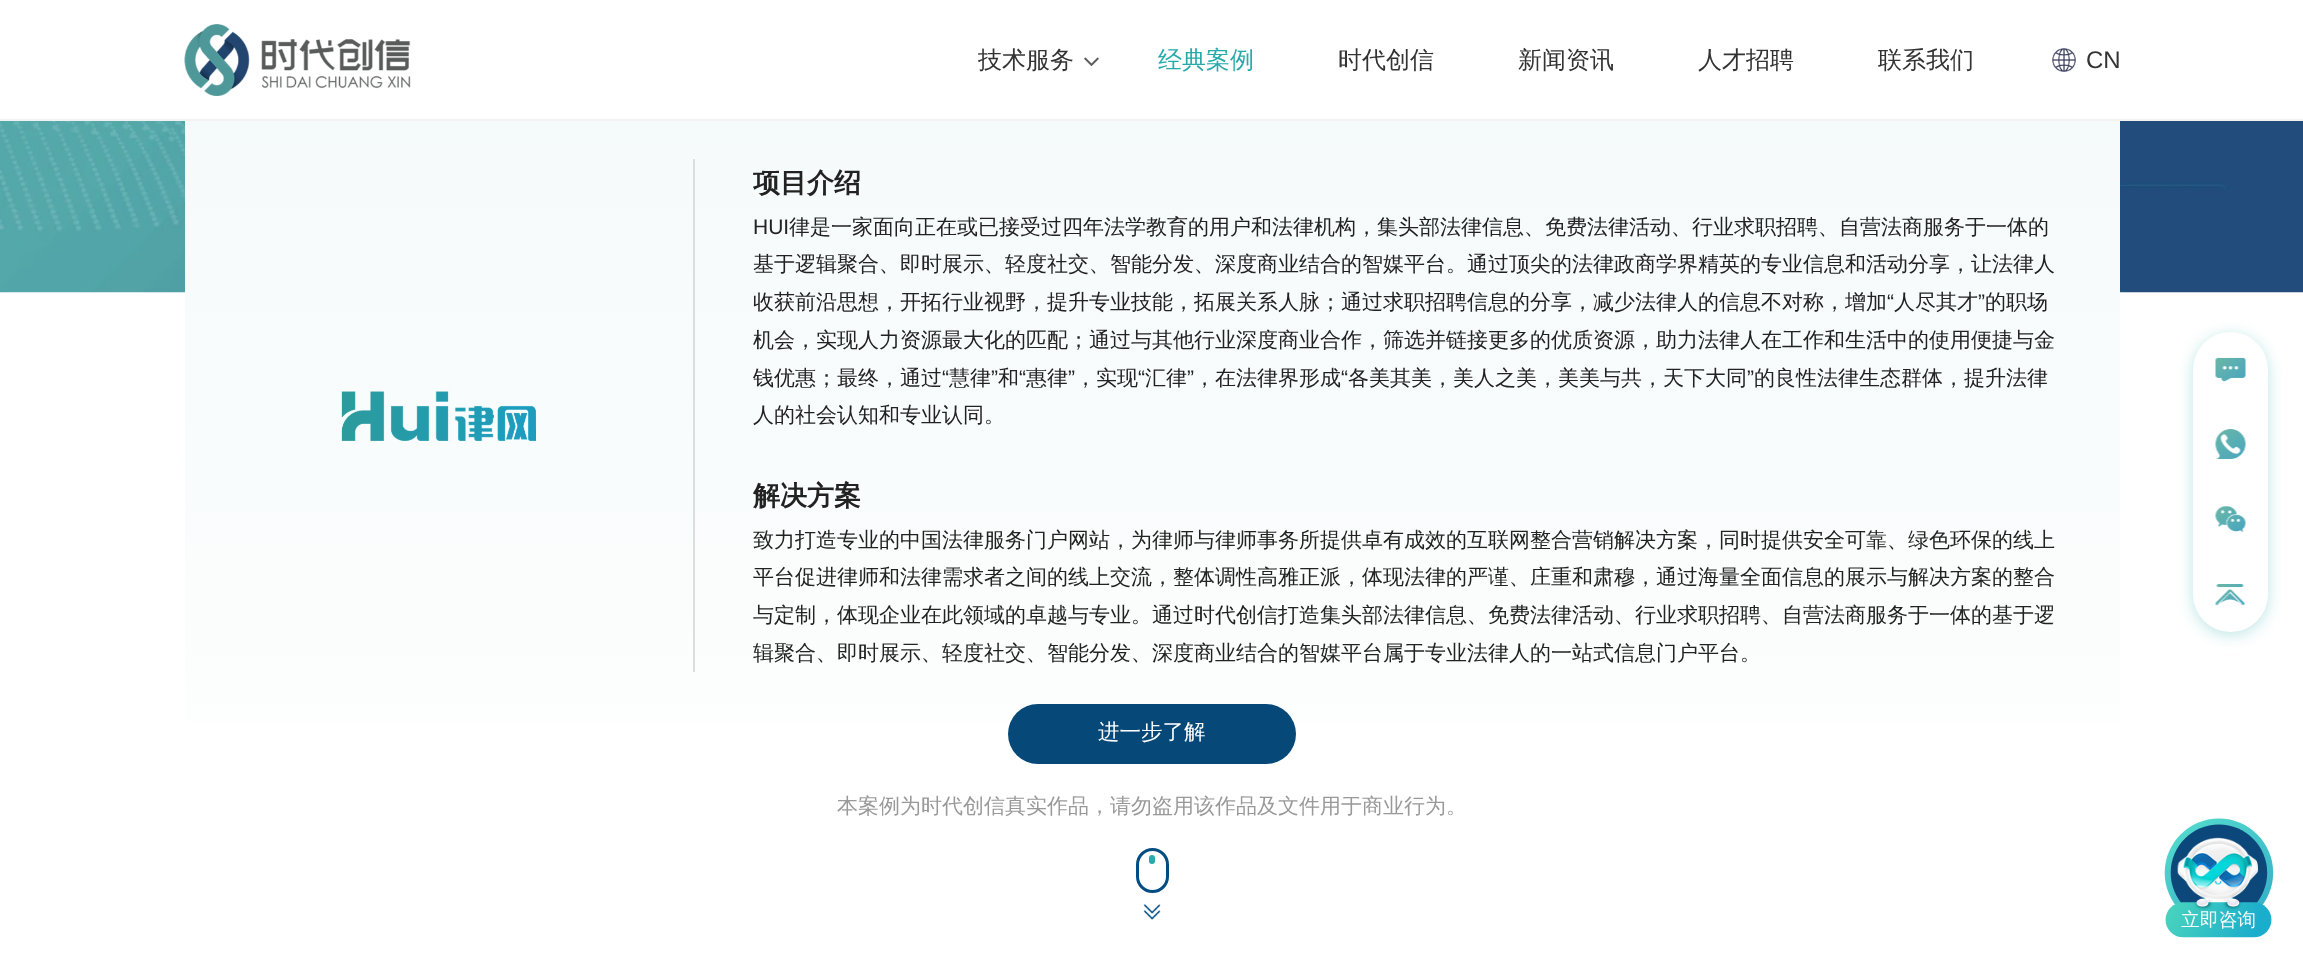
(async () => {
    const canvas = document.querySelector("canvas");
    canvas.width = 2303;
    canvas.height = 962;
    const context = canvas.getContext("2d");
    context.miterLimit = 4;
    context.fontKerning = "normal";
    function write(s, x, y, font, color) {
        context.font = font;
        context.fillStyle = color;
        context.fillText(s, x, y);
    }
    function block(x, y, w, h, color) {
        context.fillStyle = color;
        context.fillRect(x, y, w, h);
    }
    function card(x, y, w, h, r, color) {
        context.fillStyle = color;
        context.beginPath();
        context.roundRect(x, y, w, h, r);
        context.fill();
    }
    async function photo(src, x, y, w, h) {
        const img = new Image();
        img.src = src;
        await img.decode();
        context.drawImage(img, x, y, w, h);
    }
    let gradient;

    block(0, 0, 2303, 962, "rgb(255, 255, 255)");
    block(0, 119, 2303, 2, "rgb(242, 242, 242)");
    await photo("media/1.png", 184, 24, 227, 72);
    write("技术服务", 978, 68, "500 24px WenQuanYi Zen Hei", "rgb(51, 51, 51)");
    await photo("media/2.png", 1084, 57, 15, 9);
    write("经典案例", 1158, 68, "500 24px WenQuanYi Zen Hei", "rgb(40, 170, 170)");
    write("时代创信", 1338, 68, "500 24px WenQuanYi Zen Hei", "rgb(51, 51, 51)");
    write("新闻资讯", 1518, 68, "500 24px WenQuanYi Zen Hei", "rgb(51, 51, 51)");
    write("人才招聘", 1698, 68, "500 24px WenQuanYi Zen Hei", "rgb(51, 51, 51)");
    write("联系我们", 1878, 68, "500 24px WenQuanYi Zen Hei", "rgb(51, 51, 51)");
    await photo("media/3.png", 2052, 48, 24, 24);
    write("CN", 2086, 68, "24px Liberation Sans", "rgb(51, 51, 51)");
    await photo("media/4.png", 0, 121, 2303, 172);
    gradient = context.createLinearGradient(1152, 114, 1152, 924);
    gradient.addColorStop(0, "rgb(245, 250, 250)");
    gradient.addColorStop(1, "rgb(255, 255, 255)");
    context.fillStyle = gradient;
    context.fillRect(185, 121, 1935, 600);
    await photo("media/5.png", 341, 391, 195, 50);
    block(693, 159, 2, 513, "rgb(221, 221, 221)");
    write("项目介绍", 753, 192, "bold 27px WenQuanYi Zen Hei", "rgb(34, 34, 34)");
    write("HUI", 753, 234, "21px Liberation Sans", "rgb(34, 34, 34)");
    write("律是一家面向正在或已接受过四年法学教育的用户和法律机构，集头部法律信息、免费法律活动、行业求职招聘、自营法商服务于一体的", 789, 234, "500 21px WenQuanYi Zen Hei", "rgb(34, 34, 34)");
    write("基于逻辑聚合、即时展示、轻度社交、智能分发、深度商业结合的智媒平台。通过顶尖的法律政商学界精英的专业信息和活动分享，让法律人", 753, 271, "500 21px WenQuanYi Zen Hei", "rgb(34, 34, 34)");
    write("收获前沿思想，开拓行业视野，提升专业技能，拓展关系人脉；通过求职招聘信息的分享，减少法律人的信息不对称，增加", 753, 309, "500 21px WenQuanYi Zen Hei", "rgb(34, 34, 34)");
    write("“", 1887, 309, "21px Liberation Sans", "rgb(34, 34, 34)");
    write("人尽其才", 1894, 309, "500 21px WenQuanYi Zen Hei", "rgb(34, 34, 34)");
    write("”", 1978, 309, "21px Liberation Sans", "rgb(34, 34, 34)");
    write("的职场", 1985, 309, "500 21px WenQuanYi Zen Hei", "rgb(34, 34, 34)");
    write("机会，实现人力资源最大化的匹配；通过与其他行业深度商业合作，筛选并链接更多的优质资源，助力法律人在工作和生活中的使用便捷与金", 753, 347, "500 21px WenQuanYi Zen Hei", "rgb(34, 34, 34)");
    write("钱优惠；最终，通过", 753, 385, "500 21px WenQuanYi Zen Hei", "rgb(34, 34, 34)");
    write("“", 942, 385, "21px Liberation Sans", "rgb(34, 34, 34)");
    write("慧律", 949, 385, "500 21px WenQuanYi Zen Hei", "rgb(34, 34, 34)");
    write("”", 991, 385, "21px Liberation Sans", "rgb(34, 34, 34)");
    write("和", 998, 385, "500 21px WenQuanYi Zen Hei", "rgb(34, 34, 34)");
    write("“", 1019, 385, "21px Liberation Sans", "rgb(34, 34, 34)");
    write("惠律", 1026, 385, "500 21px WenQuanYi Zen Hei", "rgb(34, 34, 34)");
    write("”", 1068, 385, "21px Liberation Sans", "rgb(34, 34, 34)");
    write("，实现", 1075, 385, "500 21px WenQuanYi Zen Hei", "rgb(34, 34, 34)");
    write("“", 1138, 385, "21px Liberation Sans", "rgb(34, 34, 34)");
    write("汇律", 1145, 385, "500 21px WenQuanYi Zen Hei", "rgb(34, 34, 34)");
    write("”", 1187, 385, "21px Liberation Sans", "rgb(34, 34, 34)");
    write("，在法律界形成", 1194, 385, "500 21px WenQuanYi Zen Hei", "rgb(34, 34, 34)");
    write("“", 1341, 385, "21px Liberation Sans", "rgb(34, 34, 34)");
    write("各美其美，美人之美，美美与共，天下大同", 1348, 385, "500 21px WenQuanYi Zen Hei", "rgb(34, 34, 34)");
    write("”", 1747, 385, "21px Liberation Sans", "rgb(34, 34, 34)");
    write("的良性法律生态群体，提升法律", 1754, 385, "500 21px WenQuanYi Zen Hei", "rgb(34, 34, 34)");
    write("人的社会认知和专业认同。", 753, 422, "500 21px WenQuanYi Zen Hei", "rgb(34, 34, 34)");
    write("解决方案", 753, 505, "bold 27px WenQuanYi Zen Hei", "rgb(34, 34, 34)");
    write("致力打造专业的中国法律服务门户网站，为律师与律师事务所提供卓有成效的互联网整合营销解决方案，同时提供安全可靠、绿色环保的线上", 753, 547, "500 21px WenQuanYi Zen Hei", "rgb(34, 34, 34)");
    write("平台促进律师和法律需求者之间的线上交流，整体调性高雅正派，体现法律的严谨、庄重和肃穆，通过海量全面信息的展示与解决方案的整合", 753, 584, "500 21px WenQuanYi Zen Hei", "rgb(34, 34, 34)");
    write("与定制，体现企业在此领域的卓越与专业。通过时代创信打造集头部法律信息、免费法律活动、行业求职招聘、自营法商服务于一体的基于逻", 753, 622, "500 21px WenQuanYi Zen Hei", "rgb(34, 34, 34)");
    write("辑聚合、即时展示、轻度社交、智能分发、深度商业结合的智媒平台属于专业法律人的一站式信息门户平台。", 753, 660, "500 21px WenQuanYi Zen Hei", "rgb(34, 34, 34)");
    card(1008, 704, 288, 60, 30, "rgb(6, 72, 119)");
    write("进一步了解", 1098, 739, "500 21.5px WenQuanYi Zen Hei", "rgb(255, 255, 255)");
    write("本案例为时代创信真实作品，请勿盗用该作品及文件用于商业行为。", 837, 813, "500 21px WenQuanYi Zen Hei", "rgb(153, 153, 153)");
    context.beginPath();
    context.roundRect(1137.5, 849.5, 30, 42, 15);
    context.strokeStyle = "rgb(0, 77, 132)";
    context.lineWidth = 3;
    context.stroke();
    card(1149, 855, 6, 9, 3, "rgb(40, 170, 170)");
    await photo("media/6.png", 1143, 904, 18, 16);
    context.fillStyle = "rgba(40, 170, 170, 0.3)";
    context.filter = "blur(7.5px)";
    context.beginPath();
    context.roundRect(2193, 335, 75, 300, 37.5);
    context.fill();
    context.filter = "none";
    card(2193, 332, 75, 300, 37.5, "rgb(255, 255, 255)");
    await photo("media/7.png", 2215, 357, 31, 25);
    await photo("media/8.png", 2215, 429, 31, 30);
    await photo("media/9.png", 2215, 506, 31, 26);
    await photo("media/10.png", 2215, 584, 30, 22);
    await photo("media/11.png", 2164, 818, 110, 120);
})();
